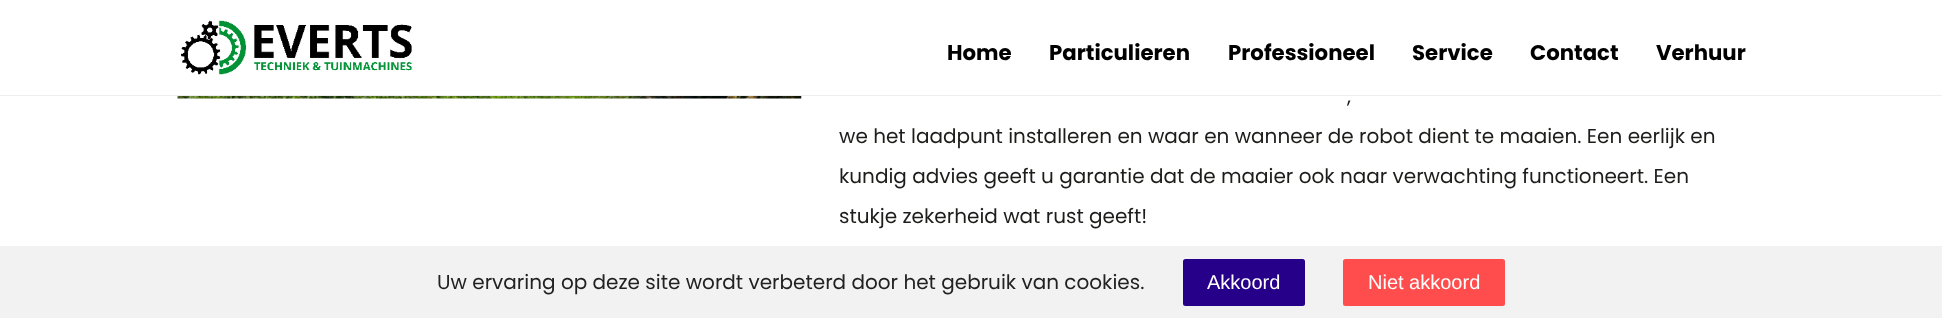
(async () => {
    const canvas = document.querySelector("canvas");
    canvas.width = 1942;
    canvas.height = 318;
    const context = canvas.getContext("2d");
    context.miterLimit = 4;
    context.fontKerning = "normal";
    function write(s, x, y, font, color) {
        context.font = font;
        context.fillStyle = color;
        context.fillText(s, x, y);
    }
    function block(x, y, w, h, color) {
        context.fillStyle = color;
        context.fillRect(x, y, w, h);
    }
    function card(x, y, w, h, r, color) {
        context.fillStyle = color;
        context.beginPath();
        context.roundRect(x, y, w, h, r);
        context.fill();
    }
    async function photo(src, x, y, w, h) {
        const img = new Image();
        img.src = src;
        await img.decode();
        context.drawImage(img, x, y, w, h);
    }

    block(0, 0, 1942, 318, "rgb(255, 255, 255)");
    block(0, 95, 1942, 1, "rgb(238, 238, 238)");
    await photo("media/1.png", 181, 20, 231, 55);
    write("Home", 947, 60, "bold 21.25px Poppins", "rgb(0, 0, 0)");
    write("Particulieren", 1049, 60, "bold 21.25px Poppins", "rgb(0, 0, 0)");
    write("Professioneel", 1228, 60, "bold 21.25px Poppins", "rgb(0, 0, 0)");
    write("Service", 1412, 60, "bold 21.25px Poppins", "rgb(0, 0, 0)");
    write("Contact", 1530, 60, "bold 21.25px Poppins", "rgb(0, 0, 0)");
    write("Verhuur", 1656, 60, "bold 21.25px Poppins", "rgb(0, 0, 0)");
    await photo("media/2.png", 177, 96, 625, 3);
    write(",", 1347, 103, "20px Poppins", "rgb(29, 29, 27)");
    write("we het laadpunt installeren en waar en wanneer de robot dient te maaien. Een eerlijk en", 839, 143, "20px Poppins", "rgb(29, 29, 27)");
    write("kundig advies geeft u garantie dat de maaier ook naar verwachting functioneert. Een", 839, 183, "20px Poppins", "rgb(29, 29, 27)");
    write("stukje zekerheid wat rust geeft!", 839, 223, "20px Poppins", "rgb(29, 29, 27)");
    block(0, 246, 1942, 72, "rgb(242, 242, 242)");
    write("Uw ervaring op deze site wordt verbeterd door het gebruik van cookies.", 437, 289, "20px Poppins", "rgb(34, 34, 34)");
    card(1183, 259, 122, 47, 2.5, "rgb(38, 0, 137)");
    write("Akkoord", 1207, 289, "20px Liberation Sans", "rgb(255, 255, 255)");
    card(1343, 259, 162, 47, 2.5, "rgb(255, 77, 77)");
    write("Niet akkoord", 1368, 289, "20px Liberation Sans", "rgb(255, 255, 255)");
})();
